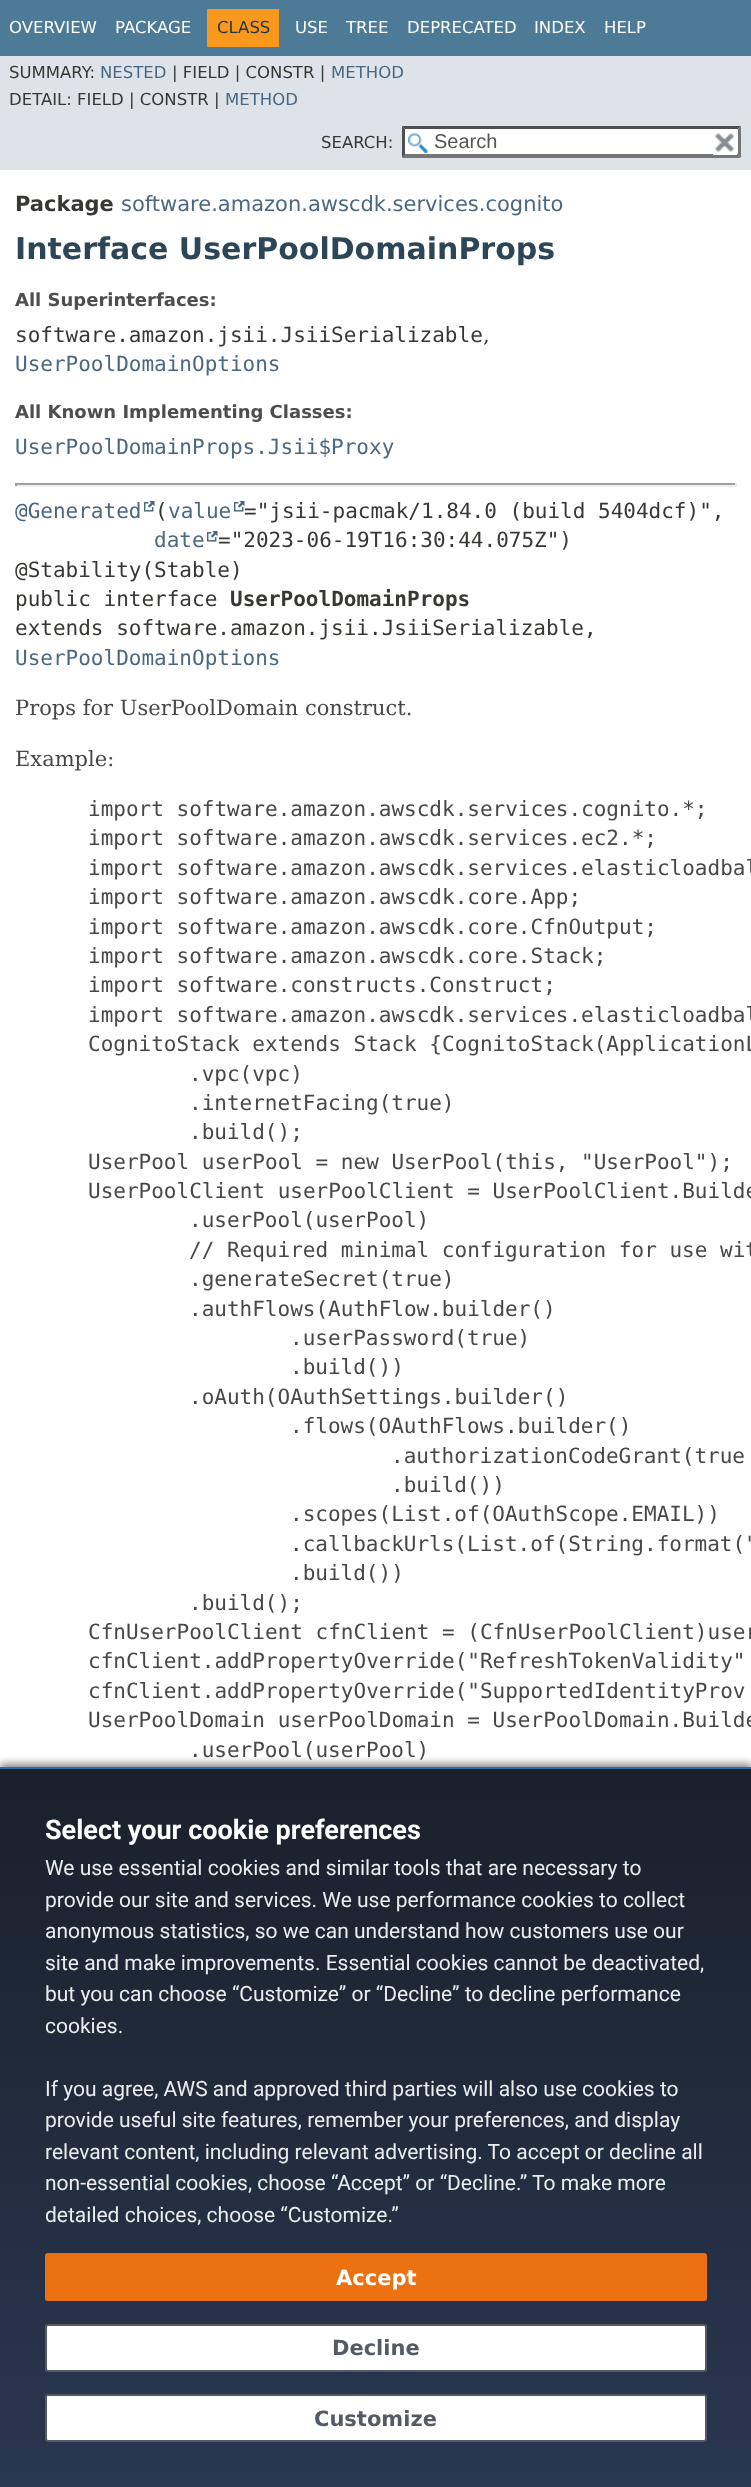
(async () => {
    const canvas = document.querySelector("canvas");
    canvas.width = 751;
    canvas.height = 2487;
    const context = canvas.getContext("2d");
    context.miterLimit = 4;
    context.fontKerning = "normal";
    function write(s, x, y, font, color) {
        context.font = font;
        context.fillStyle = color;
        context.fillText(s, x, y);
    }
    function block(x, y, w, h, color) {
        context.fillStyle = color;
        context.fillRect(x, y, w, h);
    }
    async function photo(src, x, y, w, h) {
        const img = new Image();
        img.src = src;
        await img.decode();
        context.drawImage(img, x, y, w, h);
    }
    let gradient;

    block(0, 0, 751, 2487, "rgb(255, 255, 255)");
    block(0, 0, 751, 56, "rgb(77, 122, 151)");
    write("OVERVIEW", 9, 33, "16.5px DejaVu Sans", "rgb(255, 255, 255)");
    write("PACKAGE", 115, 33, "16.5px DejaVu Sans", "rgb(255, 255, 255)");
    block(207, 9, 72, 38, "rgb(248, 152, 29)");
    write("CLASS", 217, 33, "16.5px DejaVu Sans", "rgb(37, 52, 65)");
    write("USE", 295, 33, "16.5px DejaVu Sans", "rgb(255, 255, 255)");
    write("TREE", 346, 33, "16.5px DejaVu Sans", "rgb(255, 255, 255)");
    write("DEPRECATED", 407, 33, "16.5px DejaVu Sans", "rgb(255, 255, 255)");
    write("INDEX", 534, 33, "16.5px DejaVu Sans", "rgb(255, 255, 255)");
    write("HELP", 604, 33, "16.5px DejaVu Sans", "rgb(255, 255, 255)");
    block(0, 56, 751, 114, "rgb(222, 227, 233)");
    write("SUMMARY:", 9, 78, "16.5px DejaVu Sans", "rgb(53, 56, 51)");
    write("NESTED", 100, 78, "16.5px DejaVu Sans", "rgb(74, 103, 130)");
    write("| FIELD | CONSTR |", 172, 78, "16.5px DejaVu Sans", "rgb(53, 56, 51)");
    write("METHOD", 331, 78, "16.5px DejaVu Sans", "rgb(74, 103, 130)");
    write("DETAIL: FIELD | CONSTR |", 9, 105, "16.5px DejaVu Sans", "rgb(53, 56, 51)");
    write("METHOD", 225, 105, "16.5px DejaVu Sans", "rgb(74, 103, 130)");
    write("SEARCH:", 321, 148, "16.5px DejaVu Sans", "rgb(53, 56, 51)");
    block(402, 126, 339, 32, "rgb(255, 255, 255)");
    await photo("media/1.png", 408, 133, 20, 20);
    context.fillStyle = "rgb(79, 79, 79)";
    context.beginPath();
    context.moveTo(402, 126);
    context.lineTo(741, 126);
    context.lineTo(738, 129);
    context.lineTo(405, 129);
    context.closePath();
    context.fill();
    context.fillStyle = "rgb(118, 118, 118)";
    context.beginPath();
    context.moveTo(741, 126);
    context.lineTo(741, 157.5);
    context.lineTo(738, 154.5);
    context.lineTo(738, 129);
    context.closePath();
    context.fill();
    context.beginPath();
    context.moveTo(741, 158);
    context.lineTo(402, 158);
    context.lineTo(405, 154);
    context.lineTo(738, 154);
    context.closePath();
    context.fill();
    context.fillStyle = "rgb(79, 79, 79)";
    context.beginPath();
    context.moveTo(402, 157.5);
    context.lineTo(402, 126);
    context.lineTo(405, 129);
    context.lineTo(405, 154.5);
    context.closePath();
    context.fill();
    write("Search", 434, 148, "20px Liberation Sans", "rgb(84, 84, 84)");
    block(713, 154, 24, 1, "rgb(255, 255, 255)");
    await photo("media/2.png", 714, 133, 20, 19);
    write("Package", 15, 211, "bold 21px DejaVu Sans", "rgb(53, 56, 51)");
    write("software.amazon.awscdk.services.cognito", 121, 211, "21px DejaVu Sans", "rgb(74, 103, 130)");
    write("Interface UserPoolDomainProps", 15, 259, "bold 30px DejaVu Sans", "rgb(44, 69, 87)");
    write("All Superinterfaces:", 15, 306, "bold 18px DejaVu Sans", "rgb(78, 78, 78)");
    write("software.amazon.jsii.JsiiSerializable", 15, 342, "21px DejaVu Sans Mono", "rgb(53, 56, 51)");
    write(",", 483, 342, "21px DejaVu Serif", "rgb(53, 56, 51)");
    write("UserPoolDomainOptions", 15, 371, "21px DejaVu Sans Mono", "rgb(74, 103, 130)");
    write("All Known Implementing Classes:", 15, 418, "bold 18px DejaVu Sans", "rgb(78, 78, 78)");
    write("UserPoolDomainProps.Jsii$Proxy", 15, 454, "21px DejaVu Sans Mono", "rgb(74, 103, 130)");
    block(15, 483, 722, 2, "rgb(159, 159, 159)");
    block(735, 483, 2, 3, "rgb(238, 238, 238)");
    block(15, 485, 722, 2, "rgb(238, 238, 238)");
    block(15, 483, 2, 3, "rgb(159, 159, 159)");
    write("@Generated", 15, 518, "21px DejaVu Sans Mono", "rgb(74, 103, 130)");
    await photo("media/3.png", 144, 501, 11, 11);
    write("(", 155, 518, "21px DejaVu Sans Mono", "rgb(53, 56, 51)");
    write("value", 168, 518, "21px DejaVu Sans Mono", "rgb(74, 103, 130)");
    await photo("media/3.png", 234, 501, 11, 11);
    write("=\"jsii-pacmak/1.84.0 (build 5404dcf)\",", 244, 518, "21px DejaVu Sans Mono", "rgb(53, 56, 51)");
    write("date", 154, 547, "21px DejaVu Sans Mono", "rgb(74, 103, 130)");
    await photo("media/3.png", 207, 531, 11, 11);
    write("=\"2023-06-19T16:30:44.075Z\")", 218, 547, "21px DejaVu Sans Mono", "rgb(53, 56, 51)");
    write("@Stability(Stable)", 15, 577, "21px DejaVu Sans Mono", "rgb(53, 56, 51)");
    write("public interface", 15, 606, "21px DejaVu Sans Mono", "rgb(53, 56, 51)");
    write("UserPoolDomainProps", 230, 606, "bold 21px DejaVu Sans Mono", "rgb(53, 56, 51)");
    write("extends software.amazon.jsii.JsiiSerializable,", 15, 635, "21px DejaVu Sans Mono", "rgb(53, 56, 51)");
    write("UserPoolDomainOptions", 15, 665, "21px DejaVu Sans Mono", "rgb(74, 103, 130)");
    write("Props for UserPoolDomain construct.", 15, 715, "21px DejaVu Serif", "rgb(71, 71, 71)");
    write("Example:", 15, 766, "21px DejaVu Serif", "rgb(71, 71, 71)");
    write("import software.amazon.awscdk.services.cognito.*;", 88, 816, "21px DejaVu Sans Mono", "rgb(71, 71, 71)");
    write("import software.amazon.awscdk.services.ec2.*;", 88, 845, "21px DejaVu Sans Mono", "rgb(71, 71, 71)");
    write("import software.amazon.awscdk.services.elasticloadbal", 88, 875, "21px DejaVu Sans Mono", "rgb(71, 71, 71)");
    write("import software.amazon.awscdk.core.App;", 88, 904, "21px DejaVu Sans Mono", "rgb(71, 71, 71)");
    write("import software.amazon.awscdk.core.CfnOutput;", 88, 934, "21px DejaVu Sans Mono", "rgb(71, 71, 71)");
    write("import software.amazon.awscdk.core.Stack;", 88, 963, "21px DejaVu Sans Mono", "rgb(71, 71, 71)");
    write("import software.constructs.Construct;", 88, 992, "21px DejaVu Sans Mono", "rgb(71, 71, 71)");
    write("import software.amazon.awscdk.services.elasticloadbal", 88, 1022, "21px DejaVu Sans Mono", "rgb(71, 71, 71)");
    write("CognitoStack extends Stack {CognitoStack(ApplicationL", 88, 1051, "21px DejaVu Sans Mono", "rgb(71, 71, 71)");
    write(".vpc(vpc)", 189, 1081, "21px DejaVu Sans Mono", "rgb(71, 71, 71)");
    write(".internetFacing(true)", 189, 1110, "21px DejaVu Sans Mono", "rgb(71, 71, 71)");
    write(".build();", 189, 1139, "21px DejaVu Sans Mono", "rgb(71, 71, 71)");
    write("UserPool userPool = new UserPool(this, \"UserPool\");", 88, 1169, "21px DejaVu Sans Mono", "rgb(71, 71, 71)");
    write("UserPoolClient userPoolClient = UserPoolClient.Builde", 88, 1198, "21px DejaVu Sans Mono", "rgb(71, 71, 71)");
    write(".userPool(userPool)", 189, 1227, "21px DejaVu Sans Mono", "rgb(71, 71, 71)");
    write("// Required minimal configuration for use wit", 189, 1257, "21px DejaVu Sans Mono", "rgb(71, 71, 71)");
    write(".generateSecret(true)", 189, 1286, "21px DejaVu Sans Mono", "rgb(71, 71, 71)");
    write(".authFlows(AuthFlow.builder()", 189, 1316, "21px DejaVu Sans Mono", "rgb(71, 71, 71)");
    write(".userPassword(true)", 290, 1345, "21px DejaVu Sans Mono", "rgb(71, 71, 71)");
    write(".build())", 290, 1374, "21px DejaVu Sans Mono", "rgb(71, 71, 71)");
    write(".oAuth(OAuthSettings.builder()", 189, 1404, "21px DejaVu Sans Mono", "rgb(71, 71, 71)");
    write(".flows(OAuthFlows.builder()", 290, 1433, "21px DejaVu Sans Mono", "rgb(71, 71, 71)");
    write(".authorizationCodeGrant(true", 391, 1463, "21px DejaVu Sans Mono", "rgb(71, 71, 71)");
    write(".build())", 391, 1492, "21px DejaVu Sans Mono", "rgb(71, 71, 71)");
    write(".scopes(List.of(OAuthScope.EMAIL))", 290, 1521, "21px DejaVu Sans Mono", "rgb(71, 71, 71)");
    write(".callbackUrls(List.of(String.format(\"", 290, 1551, "21px DejaVu Sans Mono", "rgb(71, 71, 71)");
    write(".build())", 290, 1580, "21px DejaVu Sans Mono", "rgb(71, 71, 71)");
    write(".build();", 189, 1610, "21px DejaVu Sans Mono", "rgb(71, 71, 71)");
    write("CfnUserPoolClient cfnClient = (CfnUserPoolClient)user", 88, 1639, "21px DejaVu Sans Mono", "rgb(71, 71, 71)");
    write("cfnClient.addPropertyOverride(\"RefreshTokenValidity\"", 88, 1668, "21px DejaVu Sans Mono", "rgb(71, 71, 71)");
    write("cfnClient.addPropertyOverride(\"SupportedIdentityProv", 88, 1698, "21px DejaVu Sans Mono", "rgb(71, 71, 71)");
    write("UserPoolDomain userPoolDomain = UserPoolDomain.Builde", 88, 1727, "21px DejaVu Sans Mono", "rgb(71, 71, 71)");
    write(".userPool(userPool)", 189, 1757, "21px DejaVu Sans Mono", "rgb(71, 71, 71)");
    context.save();
    context.beginPath();
    context.rect(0, 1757, 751, 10);
    context.clip();
    context.fillStyle = "rgba(0, 0, 0, 0.5)";
    context.filter = "blur(4px)";
    context.beginPath();
    context.rect(0, 1764, 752, 720);
    context.fill();
    context.filter = "none";
    context.restore();
    gradient = context.createLinearGradient(376, 1769, 376, 2487);
    gradient.addColorStop(0, "rgba(21, 28, 39, 0.98)");
    gradient.addColorStop(1, "rgba(38, 51, 77, 0.98)");
    context.fillStyle = gradient;
    context.fillRect(0, 1769, 751, 718);
    block(0, 1767, 751, 2, "rgb(48, 109, 163)");
    write("Select your cookie preferences", 45, 1839, "bold 27px Roboto", "rgb(255, 255, 255)");
    write("We use essential cookies and similar tools that are necessary to", 45, 1875, "21px Roboto", "rgb(234, 237, 237)");
    write("provide our site and services. We use performance cookies to collect", 45, 1907, "21px Roboto", "rgb(234, 237, 237)");
    write("anonymous statistics, so we can understand how customers use our", 45, 1938, "21px Roboto", "rgb(234, 237, 237)");
    write("site and make improvements. Essential cookies cannot be deactivated,", 45, 1970, "21px Roboto", "rgb(234, 237, 237)");
    write("but you can choose “Customize” or “Decline” to decline performance", 45, 2001, "21px Roboto", "rgb(234, 237, 237)");
    write("cookies.", 45, 2033, "21px Roboto", "rgb(234, 237, 237)");
    write("If you agree, AWS and approved third parties will also use cookies to", 45, 2096, "21px Roboto", "rgb(234, 237, 237)");
    write("provide useful site features, remember your preferences, and display", 45, 2127, "21px Roboto", "rgb(234, 237, 237)");
    write("relevant content, including relevant advertising. To accept or decline all", 45, 2159, "21px Roboto", "rgb(234, 237, 237)");
    write("non-essential cookies, choose “Accept” or “Decline.” To make more", 45, 2190, "21px Roboto", "rgb(234, 237, 237)");
    write("detailed choices, choose “Customize.”", 45, 2222, "21px Roboto", "rgb(234, 237, 237)");
    context.fillStyle = "rgb(236, 114, 17)";
    context.beginPath();
    context.roundRect(46, 2254, 660, 46, 2);
    context.fill();
    context.strokeStyle = "rgb(236, 114, 17)";
    context.lineWidth = 2;
    context.stroke();
    write("Accept", 336, 2285, "bold 21px DejaVu Sans", "rgb(255, 255, 255)");
    context.beginPath();
    context.roundRect(46, 2325, 660, 46, 2);
    context.fill();
    context.strokeStyle = "rgb(84, 91, 100)";
    context.stroke();
    write("Decline", 332, 2355, "bold 21px DejaVu Sans", "rgb(84, 91, 100)");
    context.fillStyle = "rgb(255, 255, 255)";
    context.beginPath();
    context.roundRect(46, 2395, 660, 46, 2);
    context.fill();
    context.stroke();
    write("Customize", 314, 2426, "bold 21px DejaVu Sans", "rgb(84, 91, 100)");
})();
